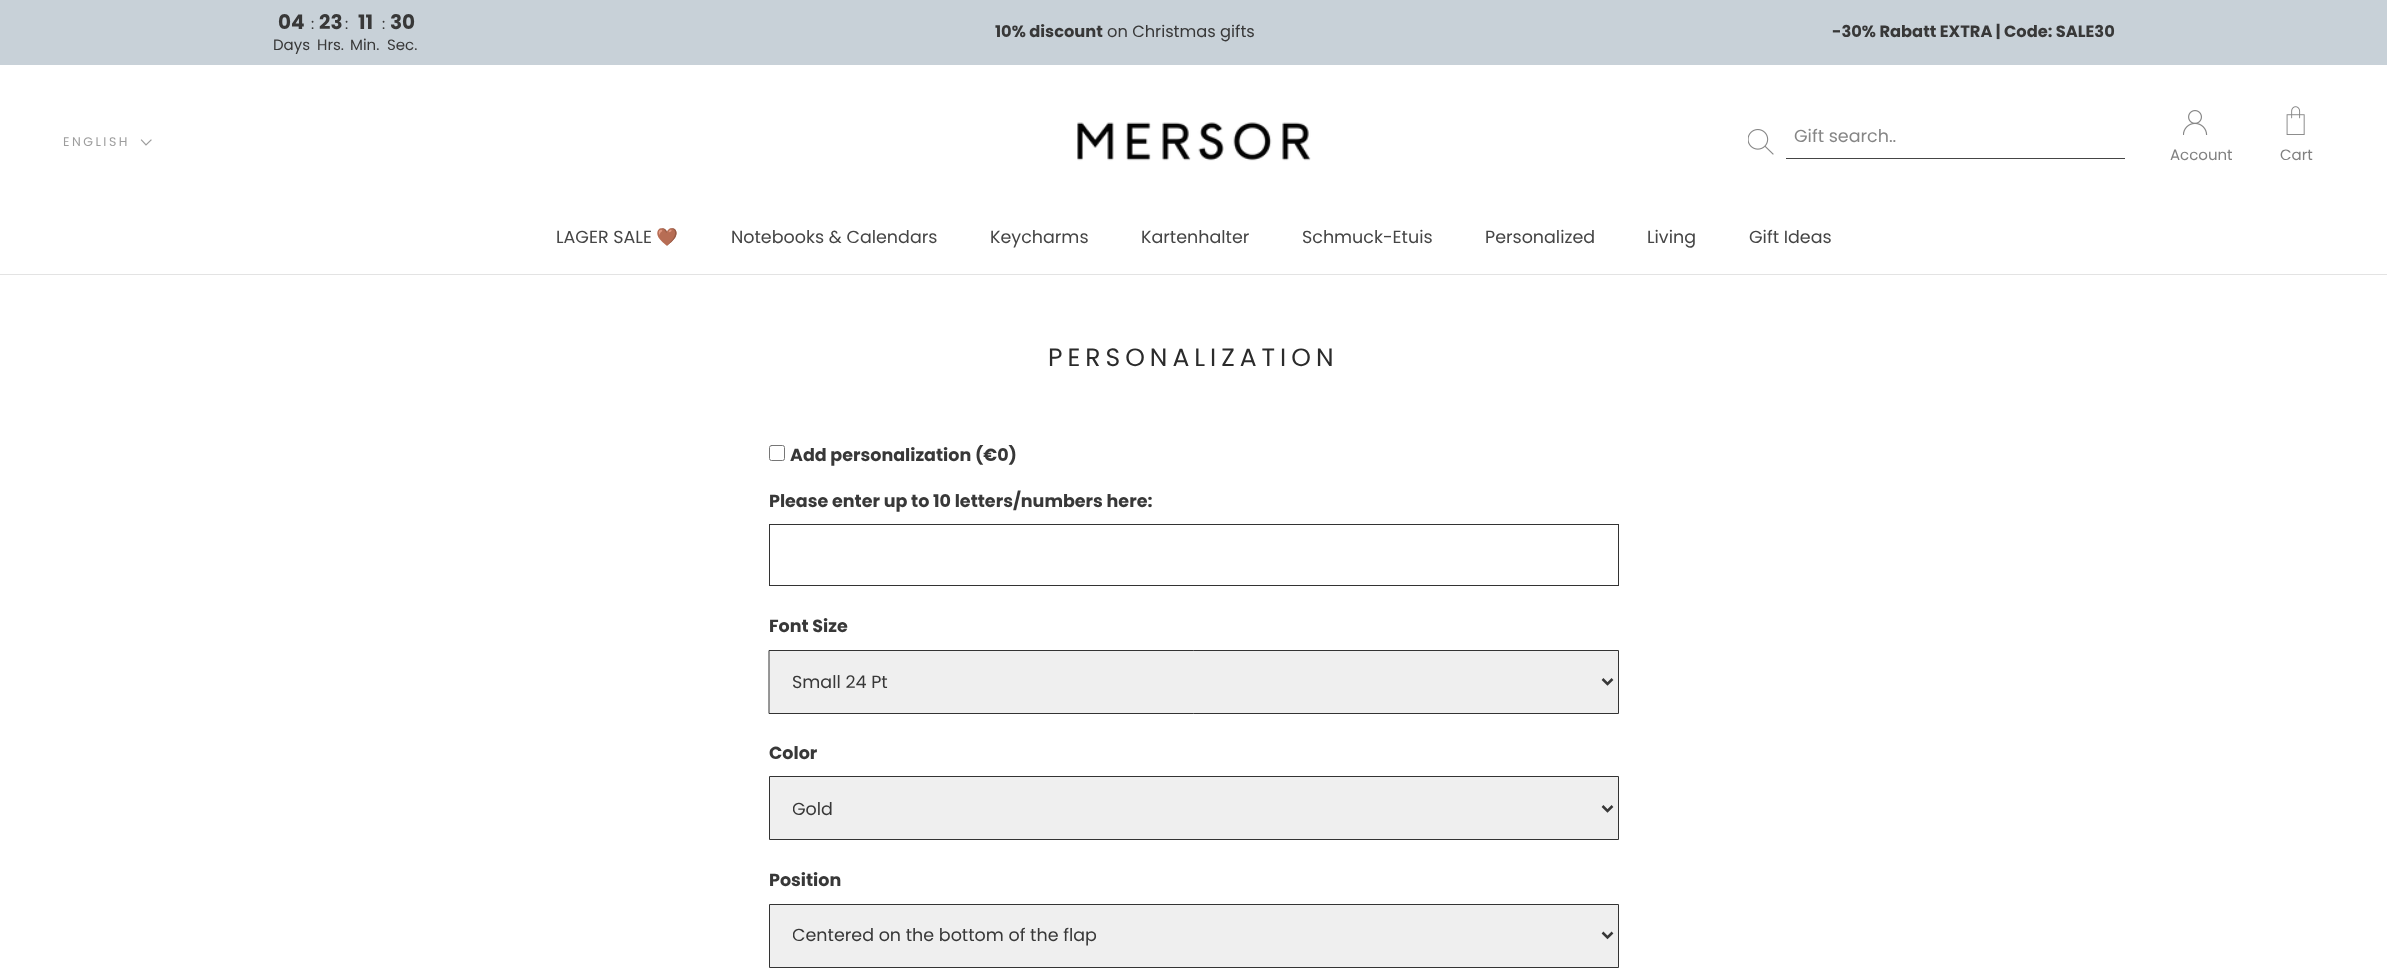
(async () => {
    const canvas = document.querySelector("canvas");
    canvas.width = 2387;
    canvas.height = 971;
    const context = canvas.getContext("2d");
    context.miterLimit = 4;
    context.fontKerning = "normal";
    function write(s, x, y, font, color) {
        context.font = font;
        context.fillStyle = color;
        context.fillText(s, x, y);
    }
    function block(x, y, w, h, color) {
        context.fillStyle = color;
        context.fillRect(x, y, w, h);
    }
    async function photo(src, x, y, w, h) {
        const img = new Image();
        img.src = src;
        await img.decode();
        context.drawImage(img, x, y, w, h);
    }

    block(0, 0, 2387, 971, "rgb(255, 255, 255)");
    block(0, 0, 2387, 65, "rgb(200, 209, 216)");
    write("04", 278, 29, "bold 20px Poppins", "rgb(56, 56, 56)");
    write("Days", 273, 50, "15px Poppins", "rgb(56, 56, 56)");
    write(":", 311, 29, "15px Poppins", "rgb(56, 56, 56)");
    write("23", 319, 29, "bold 20px Poppins", "rgb(56, 56, 56)");
    write("Hrs.", 317, 50, "15px Poppins", "rgb(56, 56, 56)");
    write(":", 345, 29, "15px Poppins", "rgb(56, 56, 56)");
    write("11", 358, 29, "bold 20px Poppins", "rgb(56, 56, 56)");
    write("Min.", 350, 50, "15px Poppins", "rgb(56, 56, 56)");
    write(":", 382, 29, "15px Poppins", "rgb(56, 56, 56)");
    write("30", 390, 29, "bold 20px Poppins", "rgb(56, 56, 56)");
    write("Sec.", 387, 50, "15px Poppins", "rgb(56, 56, 56)");
    write("10% discount", 995, 37, "bold 16.25px Poppins", "rgb(56, 56, 56)");
    write("on Christmas gifts", 1107, 37, "16.25px Poppins", "rgb(56, 56, 56)");
    write("-30% Rabatt EXTRA | Code: SALE30", 1832, 37, "bold 16.25px Poppins", "rgb(56, 56, 56)");
    block(0, 274, 2387, 1, "rgb(227, 227, 227)");
    await photo("media/1.png", 1077, 122, 234, 39);
    await photo("media/2.png", 1748, 129, 26, 26);
    block(1786, 158, 339, 1, "rgb(69, 69, 69)");
    write("Gift search..", 1794, 142, "17.5px Poppins", "rgb(134, 134, 134)");
    await photo("media/3.png", 2183, 110, 25, 25);
    write("Account", 2170, 160, "15px Poppins", "rgb(128, 128, 128)");
    await photo("media/4.png", 2286, 106, 19, 29);
    write("Cart", 2280, 160, "15px Poppins", "rgb(128, 128, 128)");
    context.letterSpacing = "2.5px";
    write("ENGLISH", 63, 146, "12.5px Poppins", "rgb(157, 157, 157)");
    context.beginPath();
    context.moveTo(151, 140);
    context.lineTo(146, 145);
    context.lineTo(141.5, 140);
    context.strokeStyle = "rgb(157, 157, 157)";
    context.lineWidth = 1.2;
    context.lineCap = "square";
    context.stroke();
    context.letterSpacing = "0px";
    write("LAGER SALE", 556, 243, "17.5px Poppins", "rgb(69, 69, 69)");
    write("🤎", 656, 243, "17.5px Noto Color Emoji", "rgb(69, 69, 69)");
    write("Notebooks & Calendars", 731, 243, "17.5px Poppins", "rgb(69, 69, 69)");
    write("Keycharms", 990, 243, "17.5px Poppins", "rgb(69, 69, 69)");
    write("Kartenhalter", 1141, 243, "17.5px Poppins", "rgb(69, 69, 69)");
    write("Schmuck-Etuis", 1302, 243, "17.5px Poppins", "rgb(69, 69, 69)");
    write("Personalized", 1485, 243, "17.5px Poppins", "rgb(69, 69, 69)");
    write("Living", 1647, 243, "17.5px Poppins", "rgb(69, 69, 69)");
    write("Gift Ideas", 1749, 243, "17.5px Poppins", "rgb(69, 69, 69)");
    context.letterSpacing = "5px";
    write("PERSONALIZATION", 1048, 366, "25px Poppins", "rgb(43, 43, 43)");
    context.beginPath();
    context.roundRect(769.5, 445.5, 15, 15, 2);
    context.strokeStyle = "rgb(118, 118, 118)";
    context.lineWidth = 1;
    context.stroke();
    context.letterSpacing = "0px";
    write("Add personalization (€0)", 790, 461, "bold 17.5px Poppins", "rgb(56, 56, 56)");
    write("Please enter up to 10 letters/numbers here:", 769, 507, "bold 17.5px Poppins", "rgb(56, 56, 56)");
    context.strokeStyle = "rgb(51, 51, 51)";
    context.strokeRect(769.5, 524.5, 849, 61);
    write("Font Size", 769, 632, "bold 17.5px Poppins", "rgb(56, 56, 56)");
    context.fillStyle = "rgb(239, 239, 239)";
    context.beginPath();
    context.rect(769.5, 650.5, 849, 63);
    context.fill();
    context.stroke();
    context.beginPath();
    context.moveTo(1602.5, 679);
    context.lineTo(1607.5, 684);
    context.lineTo(1612.5, 679);
    context.strokeStyle = "rgb(56, 56, 56)";
    context.lineWidth = 2.5;
    context.lineCap = "butt";
    context.stroke();
    write("Small 24 Pt", 792, 688, "17.5px Poppins", "rgb(56, 56, 56)");
    write("Color", 769, 759, "bold 17.5px Poppins", "rgb(56, 56, 56)");
    context.fillStyle = "rgb(239, 239, 239)";
    context.beginPath();
    context.rect(769.5, 776.5, 849, 63);
    context.fill();
    context.strokeStyle = "rgb(51, 51, 51)";
    context.lineWidth = 1;
    context.stroke();
    context.beginPath();
    context.moveTo(1602.5, 806);
    context.lineTo(1607.5, 811);
    context.lineTo(1612.5, 806);
    context.strokeStyle = "rgb(56, 56, 56)";
    context.lineWidth = 2.5;
    context.stroke();
    context.save();
    context.beginPath();
    context.rect(793, 795, 787, 28);
    context.clip();
    write("Gold", 792, 815, "17.5px Poppins", "rgb(56, 56, 56)");
    context.restore();
    write("Position", 769, 886, "bold 17.5px Poppins", "rgb(56, 56, 56)");
    context.fillStyle = "rgb(239, 239, 239)";
    context.beginPath();
    context.rect(769.5, 904.5, 849, 63);
    context.fill();
    context.strokeStyle = "rgb(51, 51, 51)";
    context.lineWidth = 1;
    context.stroke();
    context.beginPath();
    context.moveTo(1602.5, 932.5);
    context.lineTo(1607.5, 937.5);
    context.lineTo(1612.5, 932.5);
    context.strokeStyle = "rgb(56, 56, 56)";
    context.lineWidth = 2.5;
    context.stroke();
    context.save();
    context.beginPath();
    context.rect(793, 921, 787, 28);
    context.clip();
    write("Centered on the bottom of the flap", 792, 941, "17.5px Poppins", "rgb(56, 56, 56)");
    context.restore();
})();
